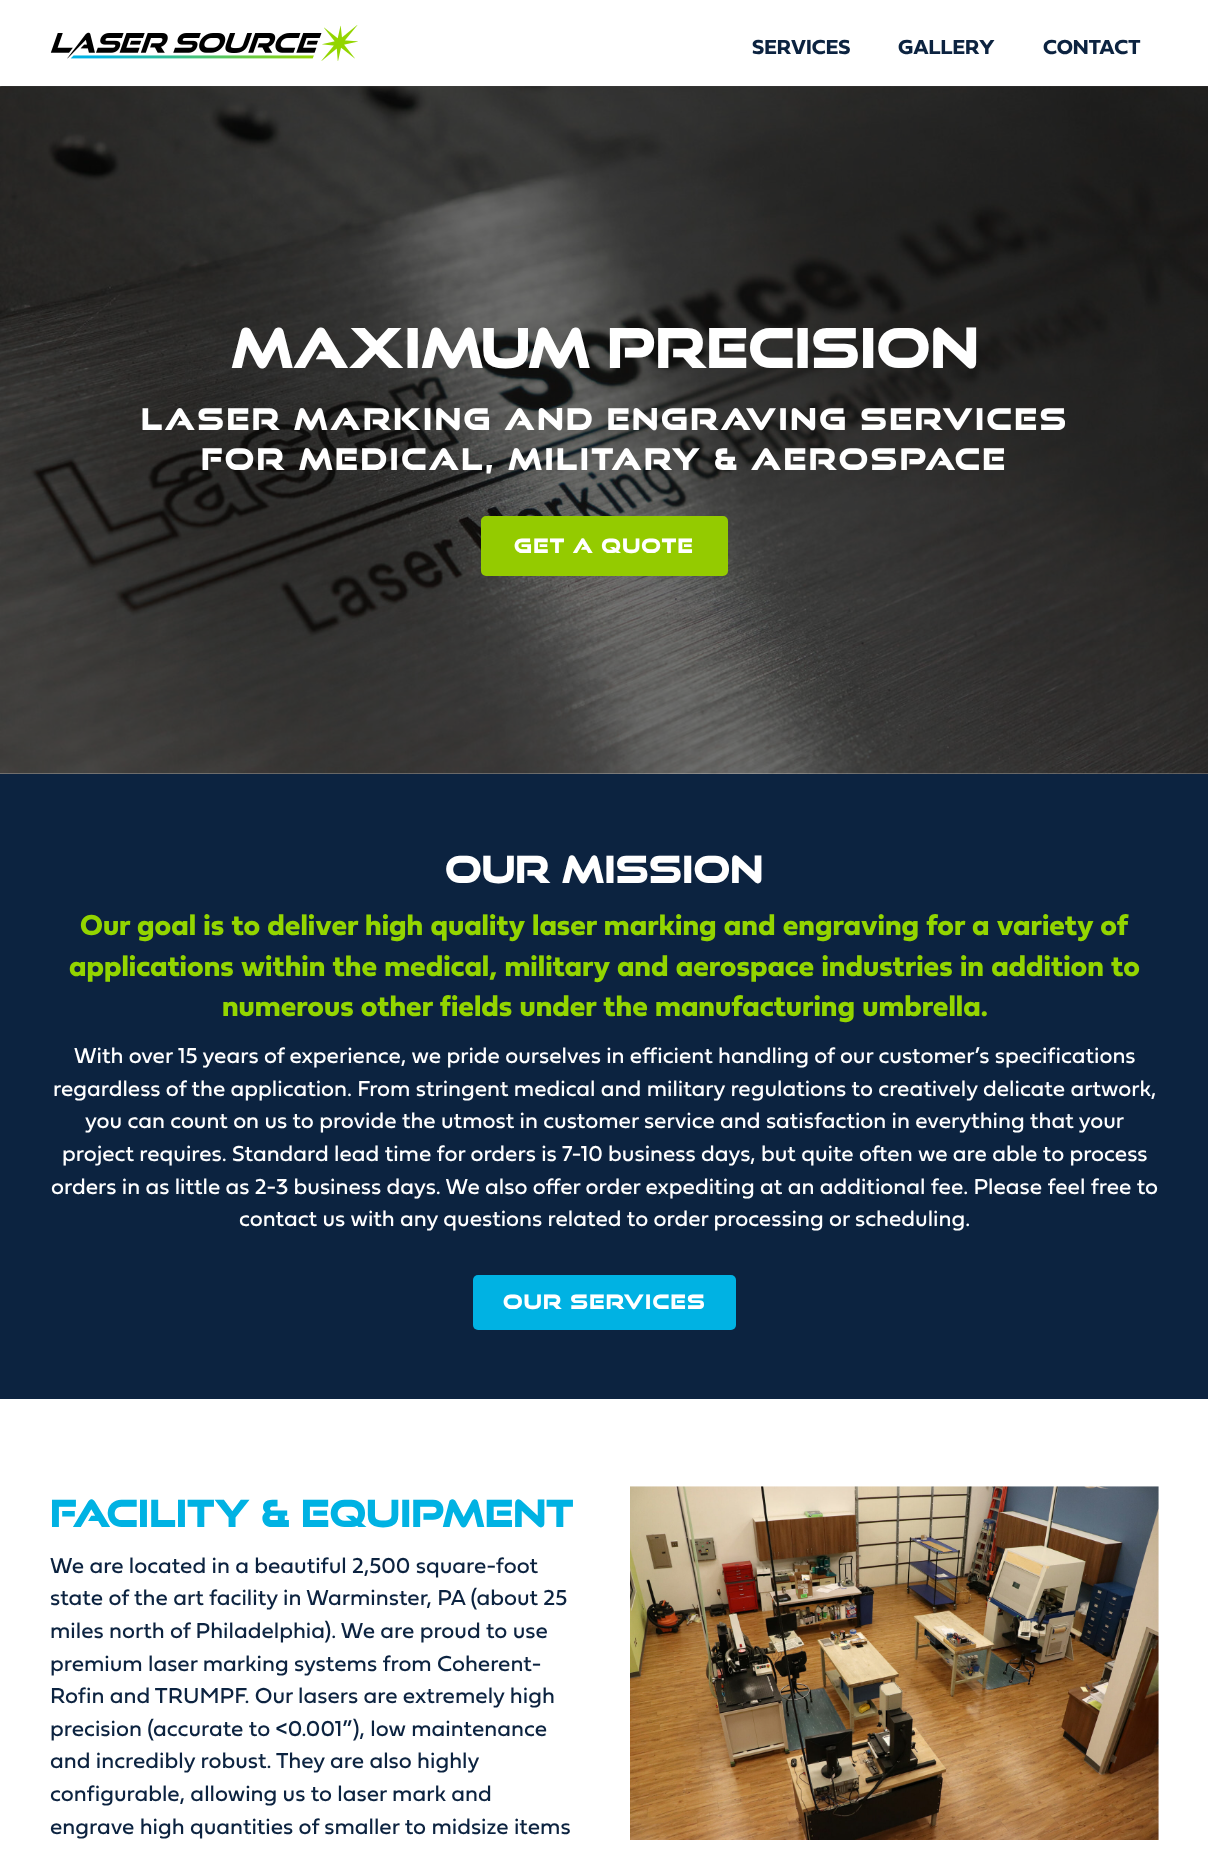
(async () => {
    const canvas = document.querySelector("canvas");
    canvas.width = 1208;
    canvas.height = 1856;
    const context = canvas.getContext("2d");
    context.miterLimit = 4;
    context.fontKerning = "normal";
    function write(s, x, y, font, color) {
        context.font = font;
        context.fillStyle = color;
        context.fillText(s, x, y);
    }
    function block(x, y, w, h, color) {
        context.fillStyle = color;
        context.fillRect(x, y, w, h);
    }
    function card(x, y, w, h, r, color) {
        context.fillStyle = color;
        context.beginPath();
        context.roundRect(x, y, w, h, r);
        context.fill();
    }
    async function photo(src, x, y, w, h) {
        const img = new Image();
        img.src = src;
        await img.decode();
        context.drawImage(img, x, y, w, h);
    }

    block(0, 0, 1208, 1856, "rgb(255, 255, 255)");
    context.fillStyle = "rgb(54, 54, 54)";
    context.filter = "blur(1px)";
    context.beginPath();
    context.rect(0, 1, 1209, 87);
    context.fill();
    context.filter = "none";
    block(0, 0, 1208, 86, "rgb(255, 255, 255)");
    await photo("media/1.png", 50, 25, 308, 36);
    write("SERVICES", 752, 54, "bold 21.25px 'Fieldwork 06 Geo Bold'", "rgb(12, 35, 64)");
    write("GALLERY", 898, 54, "bold 21.25px 'Fieldwork 06 Geo Bold'", "rgb(12, 35, 64)");
    write("CONTACT", 1043, 54, "bold 21.25px 'Fieldwork 06 Geo Bold'", "rgb(12, 35, 64)");
    await photo("media/2.png", 0, 86, 1208, 688);
    write("Maximum Precision", 231, 368, "55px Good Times", "rgb(255, 255, 255)");
    context.letterSpacing = "2.5px";
    write("LASER MARKING AND ENGRAVING SERVICES", 141, 430, "30px Good Times", "rgb(255, 255, 255)");
    write("FOR MEDICAL, MILITARY & AEROSPACE", 201, 470, "30px Good Times", "rgb(255, 255, 255)");
    context.fillStyle = "rgb(148, 203, 0)";
    context.beginPath();
    context.roundRect(482.5, 517.5, 244, 57, 3.5);
    context.fill();
    context.strokeStyle = "rgb(148, 203, 0)";
    context.lineWidth = 3;
    context.stroke();
    context.letterSpacing = "1.25px";
    write("GET A QUOTE", 514, 553, "20px Good Times", "rgb(255, 255, 255)");
    block(0, 774, 1208, 625, "rgb(12, 35, 64)");
    context.letterSpacing = "0px";
    write("Our Mission", 445, 883, "37.5px Good Times", "rgb(255, 255, 255)");
    write("Our goal is to deliver high quality laser marking and engraving for a variety of", 80, 935, "bold 30px 'Fieldwork 06 Geo Bold'", "rgb(147, 213, 0)");
    write("applications within the medical, military and aerospace industries in addition to", 69, 976, "bold 30px 'Fieldwork 06 Geo Bold'", "rgb(147, 213, 0)");
    write("numerous other fields under the manufacturing umbrella.", 222, 1016, "bold 30px 'Fieldwork 06 Geo Bold'", "rgb(147, 213, 0)");
    write("With over 15 years of experience, we pride ourselves in efficient handling of our customer’s specifications", 74, 1063, "22.5px 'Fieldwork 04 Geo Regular'", "rgb(255, 255, 255)");
    write("regardless of the application. From stringent medical and military regulations to creatively delicate artwork,", 53, 1096, "22.5px 'Fieldwork 04 Geo Regular'", "rgb(255, 255, 255)");
    write("you can count on us to provide the utmost in customer service and satisfaction in everything that your", 85, 1128, "22.5px 'Fieldwork 04 Geo Regular'", "rgb(255, 255, 255)");
    write("project requires. Standard lead time for orders is 7-10 business days, but quite often we are able to process", 62, 1161, "22.5px 'Fieldwork 04 Geo Regular'", "rgb(255, 255, 255)");
    write("orders in as little as 2-3 business days. We also offer order expediting at an additional fee. Please feel free to", 51, 1194, "22.5px 'Fieldwork 04 Geo Regular'", "rgb(255, 255, 255)");
    write("contact us with any questions related to order processing or scheduling.", 239, 1226, "22.5px 'Fieldwork 04 Geo Regular'", "rgb(255, 255, 255)");
    card(473, 1275, 263, 55, 5, "rgb(0, 178, 227)");
    context.letterSpacing = "1.25px";
    write("Our Services", 503, 1309, "20px Good Times", "rgb(255, 255, 255)");
    context.letterSpacing = "0px";
    write("Facility & Equipment", 50, 1527, "37.5px Good Times", "rgb(0, 178, 227)");
    write("We are located in a beautiful 2,500 square-foot", 50, 1573, "22.5px 'Fieldwork 04 Geo Regular'", "rgb(12, 35, 64)");
    write("state of the art facility in Warminster, PA (about 25", 50, 1605, "22.5px 'Fieldwork 04 Geo Regular'", "rgb(12, 35, 64)");
    write("miles north of Philadelphia). We are proud to use", 50, 1638, "22.5px 'Fieldwork 04 Geo Regular'", "rgb(12, 35, 64)");
    write("premium laser marking systems from Coherent-", 50, 1671, "22.5px 'Fieldwork 04 Geo Regular'", "rgb(12, 35, 64)");
    write("Rofin and TRUMPF. Our lasers are extremely high", 50, 1703, "22.5px 'Fieldwork 04 Geo Regular'", "rgb(12, 35, 64)");
    write("precision (accurate to <0.001”), low maintenance", 50, 1736, "22.5px 'Fieldwork 04 Geo Regular'", "rgb(12, 35, 64)");
    write("and incredibly robust. They are also highly", 50, 1768, "22.5px 'Fieldwork 04 Geo Regular'", "rgb(12, 35, 64)");
    write("configurable, allowing us to laser mark and", 50, 1801, "22.5px 'Fieldwork 04 Geo Regular'", "rgb(12, 35, 64)");
    write("engrave high quantities of smaller to midsize items", 50, 1834, "22.5px 'Fieldwork 04 Geo Regular'", "rgb(12, 35, 64)");
    await photo("media/3.png", 630, 1486, 529, 354);
})();
